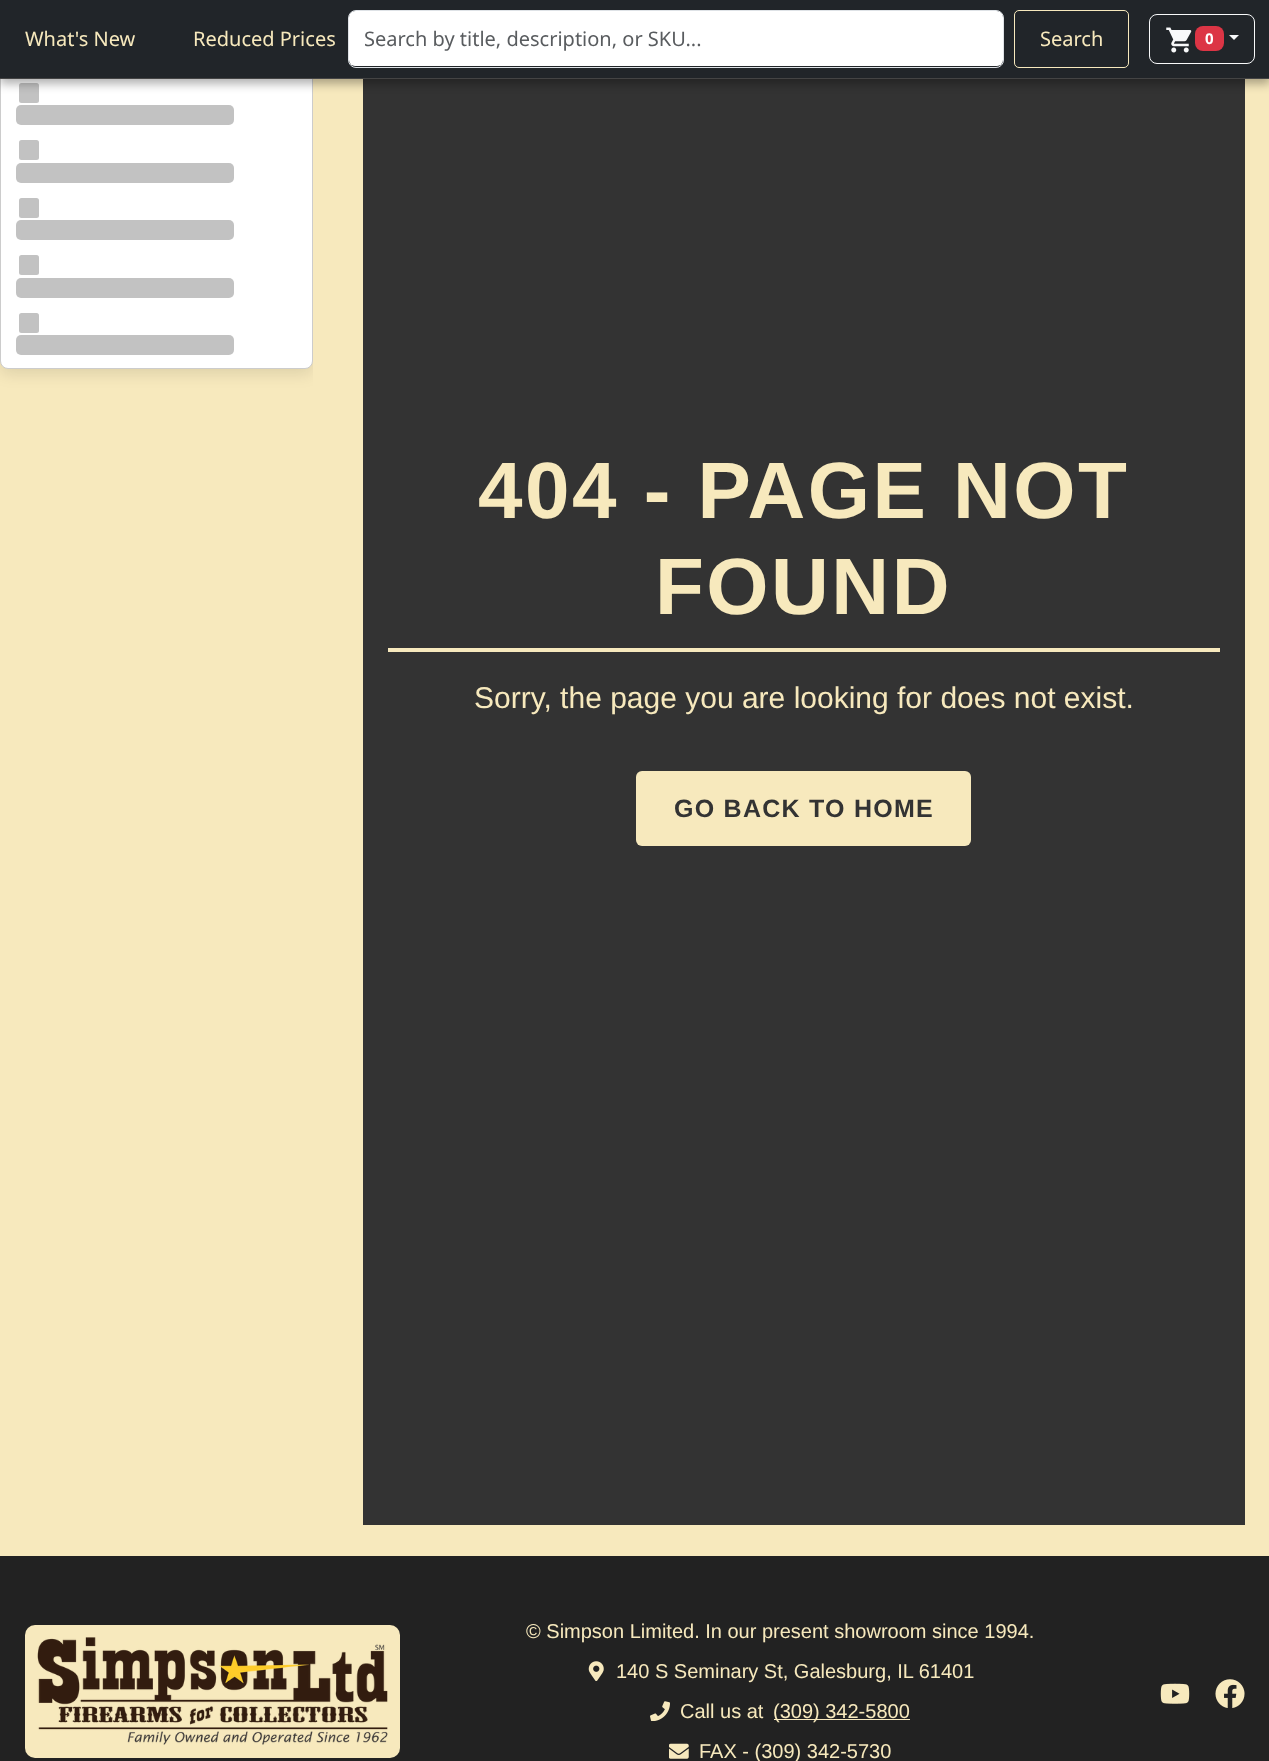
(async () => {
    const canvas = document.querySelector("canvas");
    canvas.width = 1269;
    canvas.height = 1761;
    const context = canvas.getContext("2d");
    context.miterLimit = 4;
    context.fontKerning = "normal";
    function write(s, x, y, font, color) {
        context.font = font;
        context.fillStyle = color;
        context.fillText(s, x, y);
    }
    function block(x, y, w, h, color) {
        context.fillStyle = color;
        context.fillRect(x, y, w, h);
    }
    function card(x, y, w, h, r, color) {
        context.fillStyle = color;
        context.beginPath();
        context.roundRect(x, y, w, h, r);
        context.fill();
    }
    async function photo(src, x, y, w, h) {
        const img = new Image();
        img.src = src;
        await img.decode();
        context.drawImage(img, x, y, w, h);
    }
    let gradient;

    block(0, 0, 1269, 1761, "rgb(34, 34, 34)");
    block(0, 79, 1269, 1477, "rgb(247, 233, 189)");
    context.save();
    context.beginPath();
    context.rect(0, 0, 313, 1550);
    context.clip();
    context.fillStyle = "rgba(0, 0, 0, 0.1)";
    context.filter = "blur(7.5px)";
    context.beginPath();
    context.roundRect(0, -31, 313, 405, 8);
    context.fill();
    context.filter = "none";
    context.restore();
    context.fillStyle = "rgb(255, 255, 255)";
    context.beginPath();
    context.roundRect(0.5, -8.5, 312, 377, 7.5);
    context.fill();
    context.strokeStyle = "rgb(204, 204, 204)";
    context.stroke();
    gradient = context.createLinearGradient(19, 93, 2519, 92);
    gradient.addColorStop(0.25, "rgb(194, 194, 194)");
    gradient.addColorStop(0.5, "rgb(237, 234, 224)");
    gradient.addColorStop(0.75, "rgb(194, 194, 194)");
    context.fillStyle = gradient;
    context.beginPath();
    context.roundRect(19, 83, 20, 20, 2.5);
    context.fill();
    block(363, 79, 882, 1446, "rgb(51, 51, 51)");
    context.fillStyle = "rgba(0, 0, 0, 0.3)";
    context.filter = "blur(5px)";
    context.beginPath();
    context.rect(0, 5, 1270, 79);
    context.fill();
    context.filter = "none";
    block(0, 78, 1269, 1, "rgb(68, 68, 68)");
    block(0, 0, 1269, 78, "rgb(33, 37, 41)");
    write("What's New", 25, 46, "20px Noto Sans", "rgb(247, 233, 189)");
    write("Reduced Prices", 193, 46, "20px Noto Sans", "rgb(247, 233, 189)");
    card(349, 11, 654, 55, 6, "rgb(255, 255, 255)");
    context.beginPath();
    context.roundRect(348.5, 10.5, 655, 57, 7.5);
    context.strokeStyle = "rgb(222, 226, 230)";
    context.stroke();
    write("Search by title, description, or SKU...", 364, 46, "20px Noto Sans", "rgb(89, 92, 95)");
    context.beginPath();
    context.roundRect(1014.5, 10.5, 114, 57, 4.5);
    context.strokeStyle = "rgb(247, 233, 189)";
    context.stroke();
    write("Search", 1040, 46, "20px Noto Sans", "rgb(247, 233, 189)");
    context.beginPath();
    context.roundRect(1149.5, 14.5, 105, 49, 7.5);
    context.strokeStyle = "rgb(248, 249, 250)";
    context.stroke();
    await photo("media/1.png", 1166, 27, 26, 26);
    card(1195, 26, 29, 25, 8, "rgb(220, 53, 69)");
    write("0", 1205, 44, "bold 15px Noto Sans", "rgb(255, 255, 255)");
    context.fillStyle = "rgb(248, 249, 250)";
    context.beginPath();
    context.moveTo(1229, 35);
    context.lineTo(1239, 35);
    context.lineTo(1234, 40);
    context.closePath();
    context.fill();
    gradient = context.createLinearGradient(16, 115, 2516, 115);
    gradient.addColorStop(0.25, "rgb(194, 194, 194)");
    gradient.addColorStop(0.5, "rgb(237, 234, 224)");
    gradient.addColorStop(0.75, "rgb(194, 194, 194)");
    context.fillStyle = gradient;
    context.beginPath();
    context.roundRect(16, 105, 218, 20, 5);
    context.fill();
    gradient = context.createLinearGradient(19, 150, 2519, 150);
    gradient.addColorStop(0.25, "rgb(194, 194, 194)");
    gradient.addColorStop(0.5, "rgb(237, 234, 224)");
    gradient.addColorStop(0.75, "rgb(194, 194, 194)");
    context.fillStyle = gradient;
    context.beginPath();
    context.roundRect(19, 140, 20, 20, 2.5);
    context.fill();
    gradient = context.createLinearGradient(16, 173, 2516, 172);
    gradient.addColorStop(0.25, "rgb(194, 194, 194)");
    gradient.addColorStop(0.5, "rgb(237, 234, 224)");
    gradient.addColorStop(0.75, "rgb(194, 194, 194)");
    context.fillStyle = gradient;
    context.beginPath();
    context.roundRect(16, 163, 218, 20, 5);
    context.fill();
    gradient = context.createLinearGradient(19, 208, 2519, 207);
    gradient.addColorStop(0.25, "rgb(194, 194, 194)");
    gradient.addColorStop(0.5, "rgb(237, 234, 224)");
    gradient.addColorStop(0.75, "rgb(194, 194, 194)");
    context.fillStyle = gradient;
    context.beginPath();
    context.roundRect(19, 198, 20, 20, 2.5);
    context.fill();
    gradient = context.createLinearGradient(16, 230, 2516, 230);
    gradient.addColorStop(0.25, "rgb(194, 194, 194)");
    gradient.addColorStop(0.5, "rgb(237, 234, 224)");
    gradient.addColorStop(0.75, "rgb(194, 194, 194)");
    context.fillStyle = gradient;
    context.beginPath();
    context.roundRect(16, 220, 218, 20, 5);
    context.fill();
    gradient = context.createLinearGradient(19, 265, 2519, 265);
    gradient.addColorStop(0.25, "rgb(194, 194, 194)");
    gradient.addColorStop(0.5, "rgb(237, 234, 224)");
    gradient.addColorStop(0.75, "rgb(194, 194, 194)");
    context.fillStyle = gradient;
    context.beginPath();
    context.roundRect(19, 255, 20, 20, 2.5);
    context.fill();
    gradient = context.createLinearGradient(16, 288, 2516, 287);
    gradient.addColorStop(0.25, "rgb(194, 194, 194)");
    gradient.addColorStop(0.5, "rgb(237, 234, 224)");
    gradient.addColorStop(0.75, "rgb(194, 194, 194)");
    context.fillStyle = gradient;
    context.beginPath();
    context.roundRect(16, 278, 218, 20, 5);
    context.fill();
    gradient = context.createLinearGradient(19, 323, 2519, 322);
    gradient.addColorStop(0.25, "rgb(194, 194, 194)");
    gradient.addColorStop(0.5, "rgb(237, 234, 224)");
    gradient.addColorStop(0.75, "rgb(194, 194, 194)");
    context.fillStyle = gradient;
    context.beginPath();
    context.roundRect(19, 313, 20, 20, 2.5);
    context.fill();
    gradient = context.createLinearGradient(16, 345, 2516, 345);
    gradient.addColorStop(0.25, "rgb(194, 194, 194)");
    gradient.addColorStop(0.5, "rgb(237, 234, 224)");
    gradient.addColorStop(0.75, "rgb(194, 194, 194)");
    context.fillStyle = gradient;
    context.beginPath();
    context.roundRect(16, 335, 218, 20, 5);
    context.fill();
    block(388, 648, 832, 4, "rgb(247, 233, 189)");
    context.letterSpacing = "2.5px";
    write("404 - PAGE NOT", 478, 518, "bold 80px Liberation Sans", "rgb(247, 233, 189)");
    write("FOUND", 655, 614, "bold 80px Liberation Sans", "rgb(247, 233, 189)");
    context.letterSpacing = "0px";
    write("Sorry, the page you are looking for does not exist.", 474, 708, "30px Liberation Sans", "rgb(247, 233, 189)");
    card(636, 771, 335, 75, 6, "rgb(247, 233, 189)");
    context.letterSpacing = "1.25px";
    write("GO BACK TO HOME", 674, 817, "bold 25px Liberation Sans", "rgb(51, 51, 51)");
    card(25, 1625, 375, 133, 10, "rgb(247, 233, 189)");
    await photo("media/2.png", 37, 1637, 351, 108);
    context.letterSpacing = "0px";
    write("© Simpson Limited. In our present showroom since 1994.", 526, 1638, "20px Liberation Sans", "rgb(247, 233, 189)");
    await photo("media/3.png", 588, 1661, 16, 20);
    write("140 S Seminary St, Galesburg, IL 61401", 616, 1678, "20px Liberation Sans", "rgb(247, 233, 189)");
    await photo("media/4.png", 650, 1701, 20, 20);
    write("Call us at", 680, 1718, "20px Liberation Sans", "rgb(247, 233, 189)");
    block(774, 1719, 136, 1, "rgb(247, 233, 189)");
    write("(309) 342-5800", 773, 1718, "20px Liberation Sans", "rgb(247, 233, 189)");
    await photo("media/5.png", 669, 1743, 20, 16);
    write("FAX - (309) 342-5730", 699, 1758, "20px Liberation Sans", "rgb(247, 233, 189)");
    await photo("media/6.png", 1160, 1683, 30, 21);
    await photo("media/7.png", 1215, 1679, 30, 29);
})();
